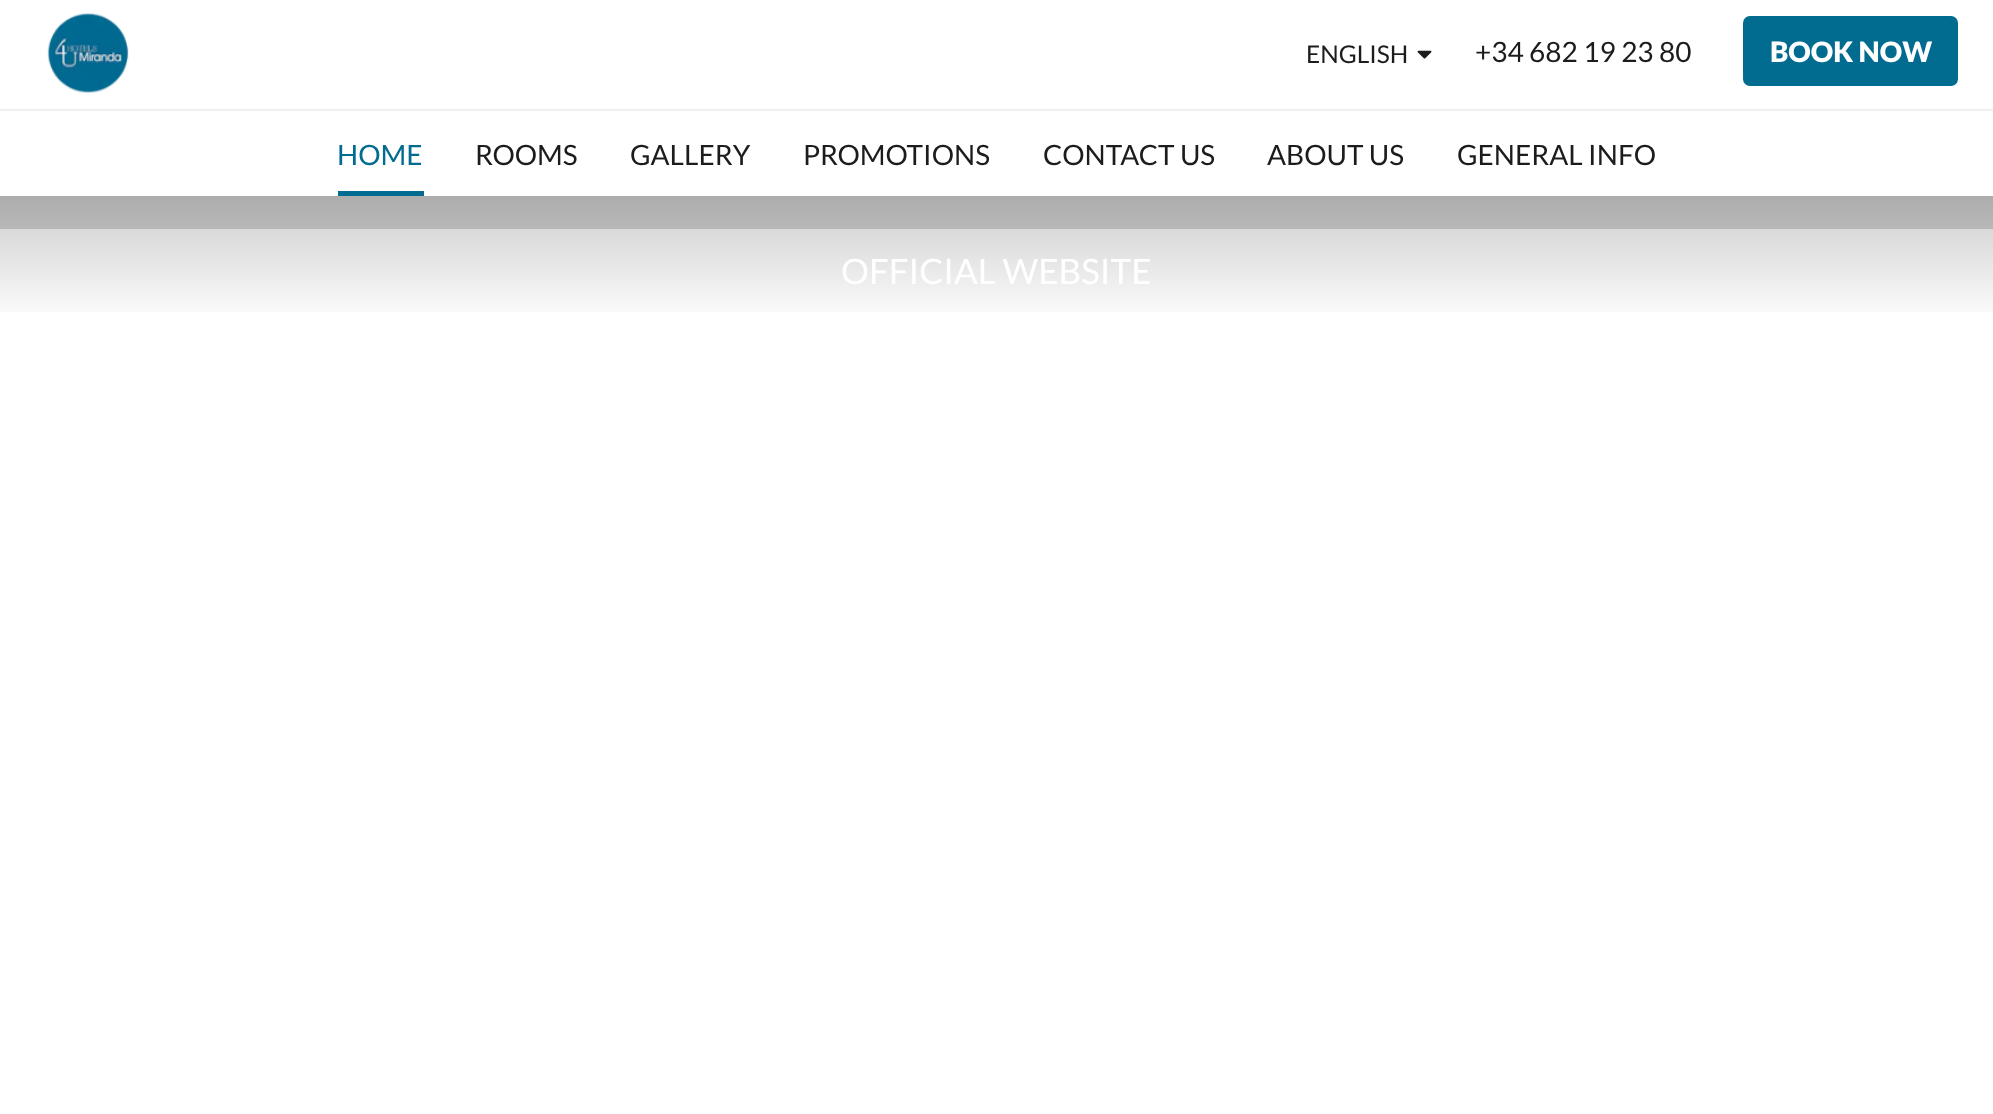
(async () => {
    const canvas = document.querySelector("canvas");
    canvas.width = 1993;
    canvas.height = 1114;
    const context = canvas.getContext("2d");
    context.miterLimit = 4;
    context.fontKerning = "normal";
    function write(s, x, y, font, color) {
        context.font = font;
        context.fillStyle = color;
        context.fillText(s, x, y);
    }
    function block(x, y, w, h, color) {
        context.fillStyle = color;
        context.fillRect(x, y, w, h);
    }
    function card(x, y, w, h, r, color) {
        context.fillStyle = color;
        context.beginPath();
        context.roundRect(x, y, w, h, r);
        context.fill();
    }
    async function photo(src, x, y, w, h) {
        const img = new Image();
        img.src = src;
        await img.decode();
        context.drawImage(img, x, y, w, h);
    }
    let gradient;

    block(0, 0, 1993, 1114, "rgb(255, 255, 255)");
    await photo("media/1.png", 47, 13, 82, 81);
    write("ENGLISH", 1306, 63, "24.5px Lato", "rgb(28, 28, 28)");
    await photo("media/2.png", 1417, 50, 15, 9);
    write("+34 682 19 23 80", 1475, 62, "28px Lato", "rgb(28, 28, 28)");
    card(1743, 16, 215, 70, 7, "rgb(1, 107, 144)");
    write("BOOK NOW", 1770, 62, "900 28px Lato", "rgb(255, 255, 255)");
    block(0, 109, 1993, 2, "rgb(239, 239, 244)");
    block(338, 191, 86, 5, "rgb(1, 107, 144)");
    write("HOME", 337, 165, "28px Lato", "rgb(1, 107, 144)");
    write("ROOMS", 475, 165, "28px Lato", "rgb(28, 28, 28)");
    write("GALLERY", 630, 165, "28px Lato", "rgb(28, 28, 28)");
    write("PROMOTIONS", 803, 165, "28px Lato", "rgb(28, 28, 28)");
    write("CONTACT US", 1043, 165, "28px Lato", "rgb(28, 28, 28)");
    write("ABOUT US", 1267, 165, "28px Lato", "rgb(28, 28, 28)");
    write("GENERAL INFO", 1457, 165, "28px Lato", "rgb(28, 28, 28)");
    block(0, 196, 1993, 33, "rgb(216, 216, 216)");
    gradient = context.createLinearGradient(997, 66, 997, 326);
    gradient.addColorStop(0, "rgba(0, 0, 0, 0)");
    gradient.addColorStop(0.5, "rgba(0, 0, 0, 0.2)");
    gradient.addColorStop(1, "rgba(0, 0, 0, 0)");
    context.fillStyle = gradient;
    context.fillRect(0, 196, 1993, 116);
    write("OFFICIAL WEBSITE", 841, 284, "35px Lato", "rgb(255, 255, 255)");
})();
